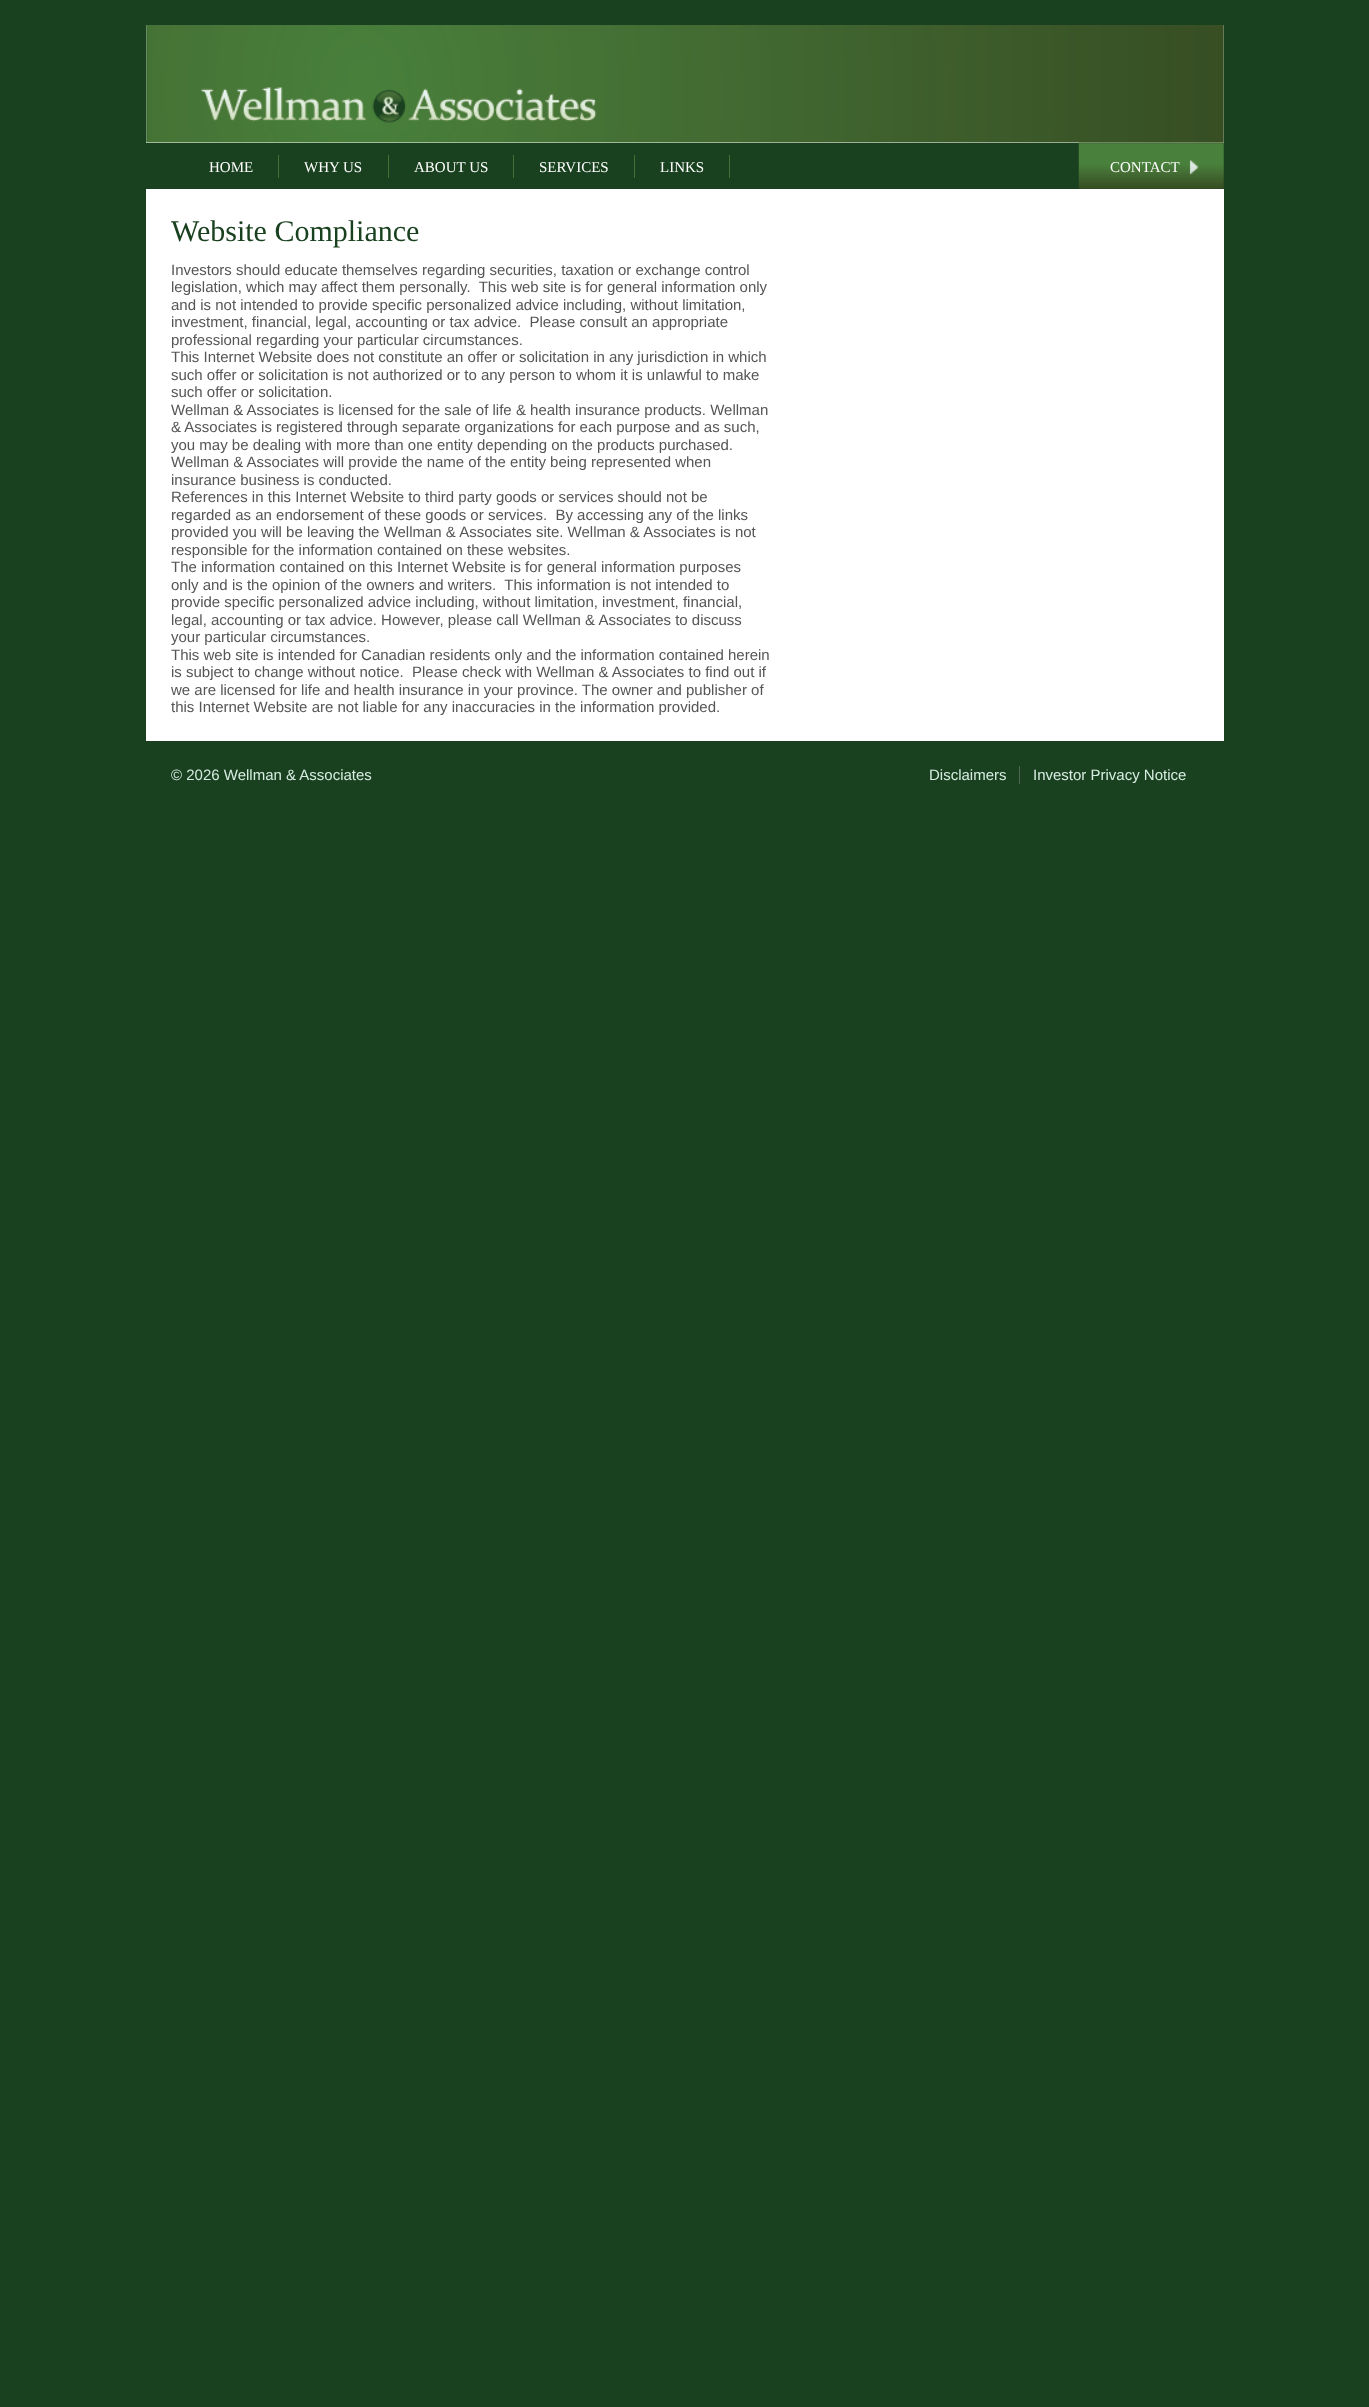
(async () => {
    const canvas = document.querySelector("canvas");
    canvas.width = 1369;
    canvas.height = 2407;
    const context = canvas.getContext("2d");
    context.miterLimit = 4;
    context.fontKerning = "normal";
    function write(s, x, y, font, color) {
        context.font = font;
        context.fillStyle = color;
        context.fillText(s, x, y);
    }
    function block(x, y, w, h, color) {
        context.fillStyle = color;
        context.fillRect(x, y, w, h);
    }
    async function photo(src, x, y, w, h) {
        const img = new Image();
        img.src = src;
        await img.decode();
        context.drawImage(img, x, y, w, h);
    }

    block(0, 0, 1369, 2407, "rgb(25, 65, 31)");
    block(146, 25, 1078, 716, "rgb(255, 255, 255)");
    block(146, 143, 1078, 46, "rgb(25, 65, 31)");
    await photo("media/3.png", 1078, 142, 146, 47);
    await photo("media/1.png", 146, 25, 1078, 118);
    await photo("media/2.png", 201, 87, 396, 36);
    block(278, 155, 1, 23, "rgb(68, 113, 53)");
    write("HOME", 209, 172, "15px Liberation Serif", "rgb(255, 255, 255)");
    block(388, 155, 1, 23, "rgb(68, 113, 53)");
    write("WHY US", 304, 172, "15px Liberation Serif", "rgb(255, 255, 255)");
    block(513, 155, 1, 23, "rgb(68, 113, 53)");
    write("ABOUT US", 414, 172, "15px Liberation Serif", "rgb(255, 255, 255)");
    block(634, 155, 1, 23, "rgb(68, 113, 53)");
    write("SERVICES", 539, 172, "15px Liberation Serif", "rgb(255, 255, 255)");
    block(729, 155, 1, 23, "rgb(68, 113, 53)");
    write("LINKS", 660, 172, "15px Liberation Serif", "rgb(255, 255, 255)");
    write("CONTACT", 1110, 172, "15px Liberation Serif", "rgb(255, 255, 255)");
    await photo("media/4.png", 1189, 159, 10, 16);
    write("Website Compliance", 171, 241, "30px Liberation Serif", "rgb(25, 65, 31)");
    write("Investors should educate themselves regarding securities, taxation or exchange control", 171, 275, "15px Liberation Sans", "rgb(85, 85, 85)");
    write("legislation, which may affect them personally.  This web site is for general information only", 171, 292, "15px Liberation Sans", "rgb(85, 85, 85)");
    write("and is not intended to provide specific personalized advice including, without limitation,", 171, 310, "15px Liberation Sans", "rgb(85, 85, 85)");
    write("investment, financial, legal, accounting or tax advice.  Please consult an appropriate", 171, 327, "15px Liberation Sans", "rgb(85, 85, 85)");
    write("professional regarding your particular circumstances.", 171, 345, "15px Liberation Sans", "rgb(85, 85, 85)");
    write("This Internet Website does not constitute an offer or solicitation in any jurisdiction in which", 171, 362, "15px Liberation Sans", "rgb(85, 85, 85)");
    write("such offer or solicitation is not authorized or to any person to whom it is unlawful to make", 171, 380, "15px Liberation Sans", "rgb(85, 85, 85)");
    write("such offer or solicitation.", 171, 397, "15px Liberation Sans", "rgb(85, 85, 85)");
    write("Wellman & Associates is licensed for the sale of life & health insurance products. Wellman", 171, 415, "15px Liberation Sans", "rgb(85, 85, 85)");
    write("& Associates is registered through separate organizations for each purpose and as such,", 171, 432, "15px Liberation Sans", "rgb(85, 85, 85)");
    write("you may be dealing with more than one entity depending on the products purchased.", 171, 450, "15px Liberation Sans", "rgb(85, 85, 85)");
    write("Wellman & Associates will provide the name of the entity being represented when", 171, 467, "15px Liberation Sans", "rgb(85, 85, 85)");
    write("insurance business is conducted.", 171, 485, "15px Liberation Sans", "rgb(85, 85, 85)");
    write("References in this Internet Website to third party goods or services should not be", 171, 502, "15px Liberation Sans", "rgb(85, 85, 85)");
    write("regarded as an endorsement of these goods or services.  By accessing any of the links", 171, 520, "15px Liberation Sans", "rgb(85, 85, 85)");
    write("provided you will be leaving the Wellman & Associates site. Wellman & Associates is not", 171, 537, "15px Liberation Sans", "rgb(85, 85, 85)");
    write("responsible for the information contained on these websites.", 171, 555, "15px Liberation Sans", "rgb(85, 85, 85)");
    write("The information contained on this Internet Website is for general information purposes", 171, 572, "15px Liberation Sans", "rgb(85, 85, 85)");
    write("only and is the opinion of the owners and writers.  This information is not intended to", 171, 590, "15px Liberation Sans", "rgb(85, 85, 85)");
    write("provide specific personalized advice including, without limitation, investment, financial,", 171, 607, "15px Liberation Sans", "rgb(85, 85, 85)");
    write("legal, accounting or tax advice. However, please call Wellman & Associates to discuss", 171, 625, "15px Liberation Sans", "rgb(85, 85, 85)");
    write("your particular circumstances.", 171, 642, "15px Liberation Sans", "rgb(85, 85, 85)");
    write("This web site is intended for Canadian residents only and the information contained herein", 171, 660, "15px Liberation Sans", "rgb(85, 85, 85)");
    write("is subject to change without notice.  Please check with Wellman & Associates to find out if", 171, 677, "15px Liberation Sans", "rgb(85, 85, 85)");
    write("we are licensed for life and health insurance in your province. The owner and publisher of", 171, 695, "15px Liberation Sans", "rgb(85, 85, 85)");
    write("this Internet Website are not liable for any inaccuracies in the information provided.", 171, 712, "15px Liberation Sans", "rgb(85, 85, 85)");
    write("© 2026 Wellman & Associates", 171, 780, "15px Liberation Sans", "rgb(216, 237, 226)");
    block(1019, 766, 1, 18, "rgb(81, 101, 82)");
    write("Disclaimers", 929, 780, "15px Liberation Sans", "rgb(216, 237, 226)");
    write("Investor Privacy Notice", 1033, 780, "15px Liberation Sans", "rgb(216, 237, 226)");
})();
